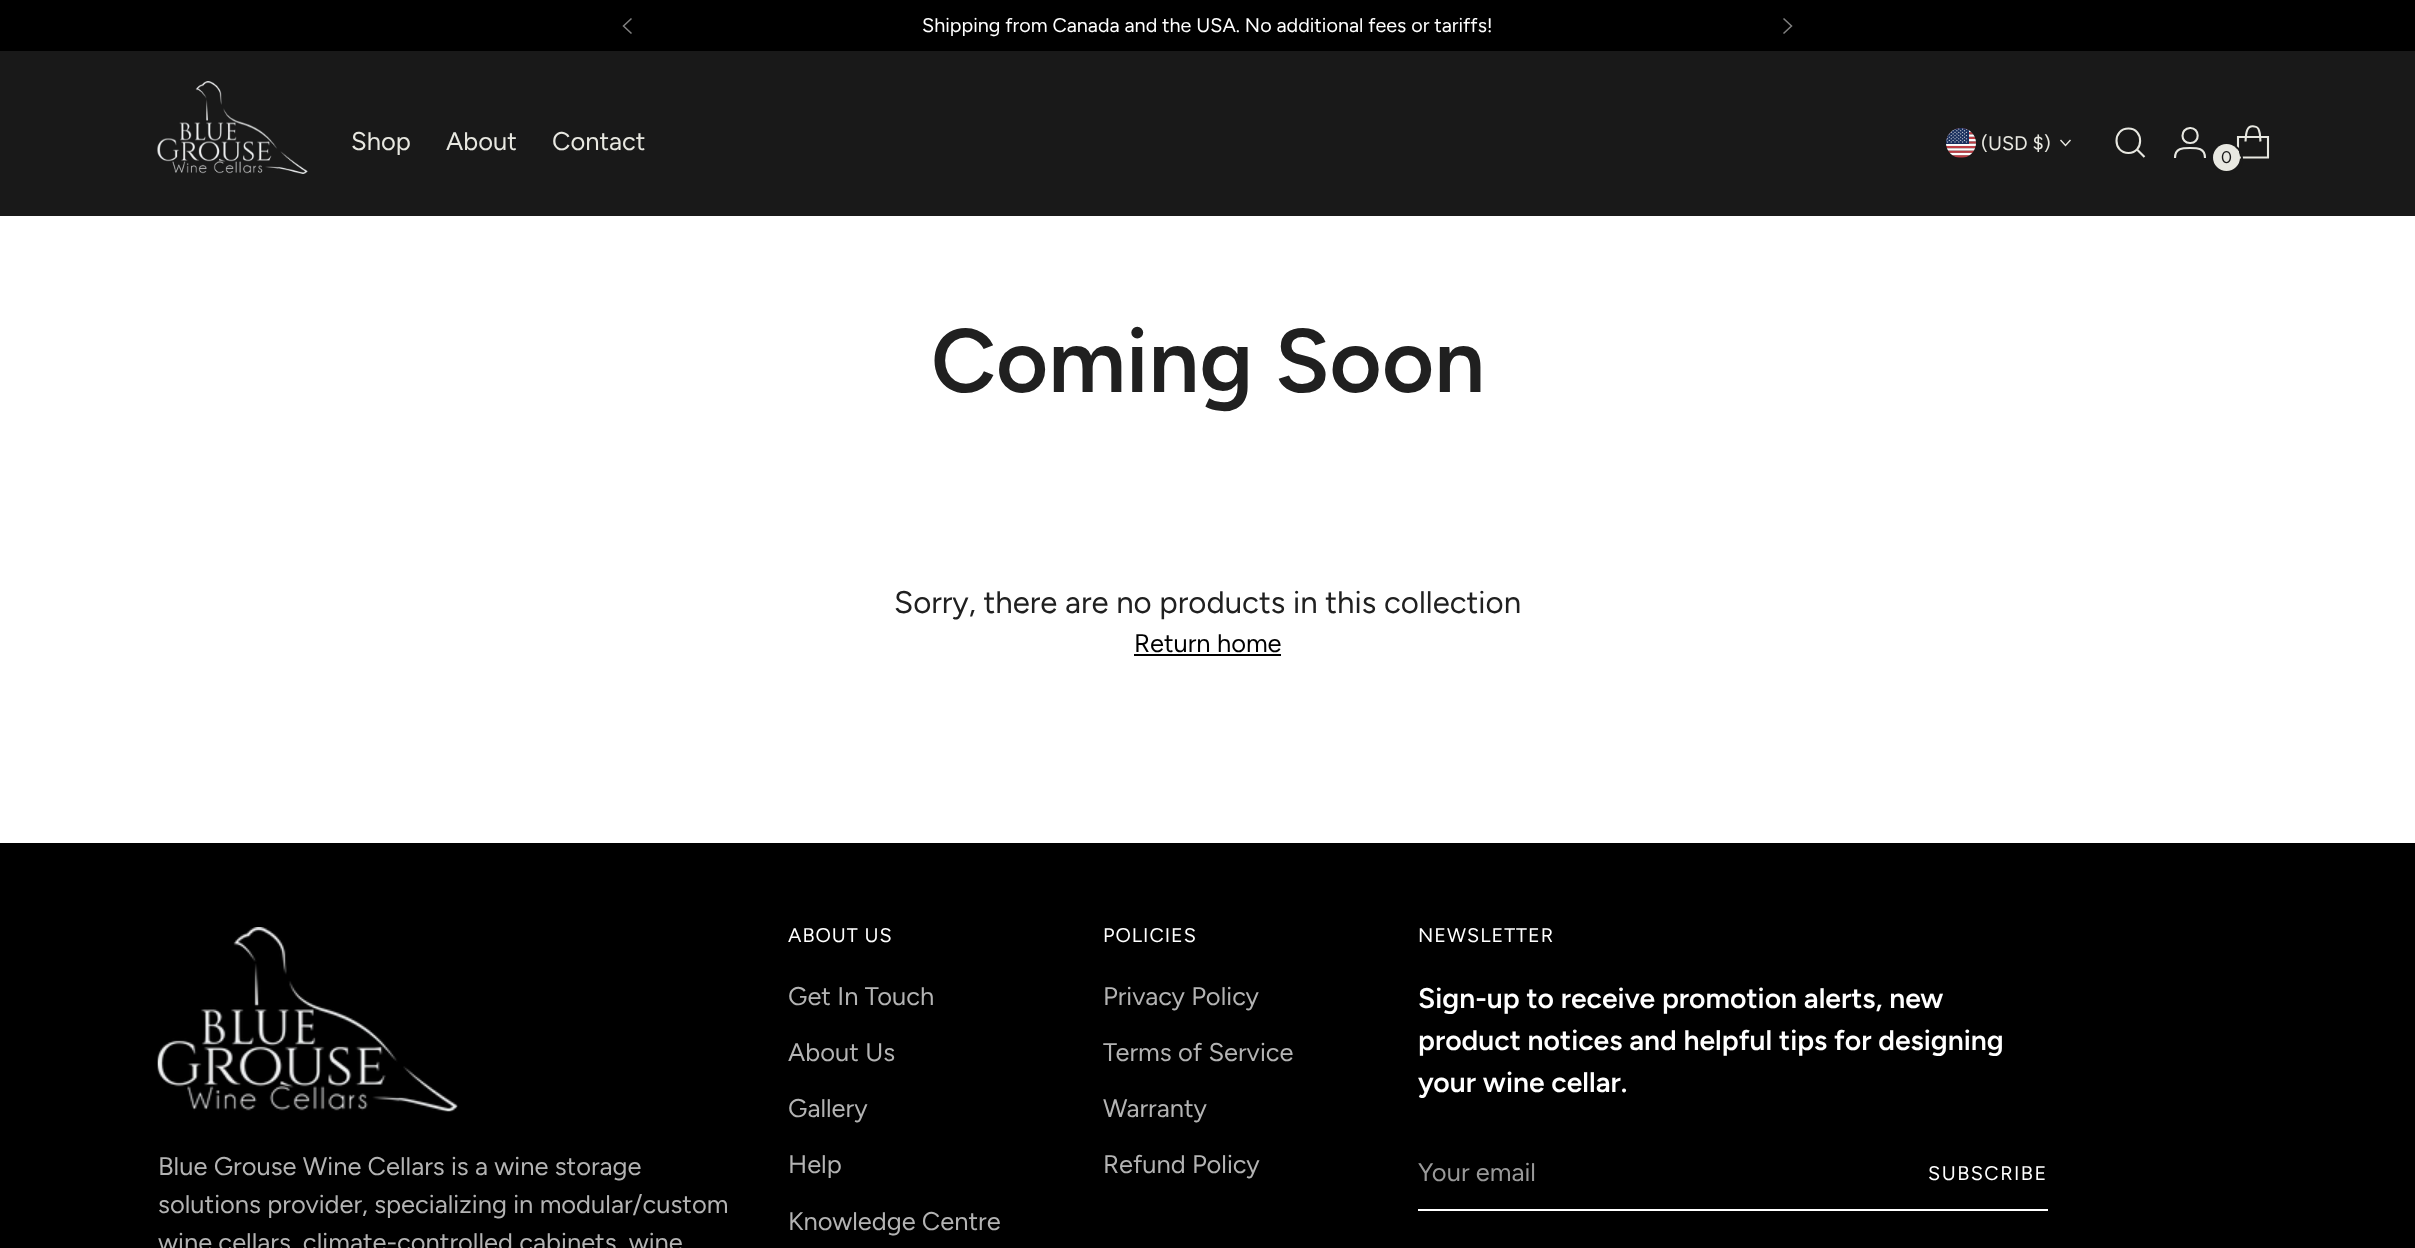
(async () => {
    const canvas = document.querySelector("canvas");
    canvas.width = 2415;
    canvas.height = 1248;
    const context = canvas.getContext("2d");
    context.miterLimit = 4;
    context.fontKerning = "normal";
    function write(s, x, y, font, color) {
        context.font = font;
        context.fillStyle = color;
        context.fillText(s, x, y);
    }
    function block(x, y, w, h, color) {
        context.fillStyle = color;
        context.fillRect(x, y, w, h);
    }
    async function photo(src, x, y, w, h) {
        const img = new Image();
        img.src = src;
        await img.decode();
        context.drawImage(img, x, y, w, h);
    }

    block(0, 0, 2415, 1248, "rgb(255, 255, 255)");
    block(0, 0, 2415, 51, "rgb(0, 0, 0)");
    write("Shipping from Canada and the USA. No additional fees or tariffs!", 922, 32, "19.8px Figtree", "rgb(255, 255, 255)");
    context.beginPath();
    context.moveTo(631.5, 18.5);
    context.lineTo(623.5, 26);
    context.lineTo(631.5, 33.5);
    context.strokeStyle = "rgb(128, 128, 128)";
    context.lineWidth = 1.5;
    context.stroke();
    context.beginPath();
    context.moveTo(1783.5, 33.5);
    context.lineTo(1791.5, 26);
    context.lineTo(1783.5, 18.5);
    context.stroke();
    block(0, 51, 2415, 165, "rgb(25, 25, 25)");
    await photo("media/1.png", 157, 81, 151, 93);
    write("Shop", 351, 150, "25.5px Figtree", "rgb(232, 232, 225)");
    write("About", 446, 150, "25.5px Figtree", "rgb(232, 232, 225)");
    write("Contact", 552, 150, "25.5px Figtree", "rgb(232, 232, 225)");
    await photo("media/2.png", 1946, 128, 30, 30);
    write("(USD $)", 1981, 150, "19.8px Figtree", "rgb(232, 232, 225)");
    context.beginPath();
    context.moveTo(2060.5, 140);
    context.lineTo(2065.5, 145.5);
    context.lineTo(2070.5, 140);
    context.strokeStyle = "rgb(232, 232, 225)";
    context.lineWidth = 1.4;
    context.stroke();
    context.beginPath();
    context.moveTo(2128.5, 153);
    context.bezierCurveTo(2144, 153, 2144, 128.5, 2128.5, 128.5);
    context.bezierCurveTo(2112.5, 128.5, 2112.5, 153, 2128.5, 153);
    context.closePath();
    context.lineWidth = 2.1;
    context.lineCap = "round";
    context.stroke();
    context.beginPath();
    context.moveTo(2137, 149.5);
    context.lineTo(2144.5, 157);
    context.lineCap = "butt";
    context.stroke();
    context.beginPath();
    context.moveTo(2190, 143);
    context.bezierCurveTo(2200.5, 143.5, 2200, 127.5, 2190, 128);
    context.bezierCurveTo(2180, 128.5, 2180, 143, 2190, 143);
    context.closePath();
    context.moveTo(2175, 158);
    context.bezierCurveTo(2175, 148, 2182.5, 148, 2190, 148);
    context.bezierCurveTo(2197.5, 148, 2205, 148, 2205, 158);
    context.stroke();
    context.beginPath();
    context.moveTo(2260.5, 141.5);
    context.bezierCurveTo(2260, 138, 2260.5, 134, 2259, 130.5);
    context.bezierCurveTo(2258.5, 128.5, 2256.5, 126.5, 2254.5, 126.5);
    context.bezierCurveTo(2245.5, 124.5, 2246, 136, 2245.5, 141.5);
    context.lineJoin = "bevel";
    context.stroke();
    context.beginPath();
    context.moveTo(2268, 157.5);
    context.lineTo(2268, 137);
    context.lineTo(2238, 137);
    context.lineTo(2238, 157.5);
    context.closePath();
    context.lineJoin = "miter";
    context.stroke();
    context.beginPath();
    context.roundRect(2212, 144, 30, 29, 14.5);
    context.strokeStyle = "rgb(25, 25, 25)";
    context.lineWidth = 2;
    context.stroke();
    context.beginPath();
    context.arc(2226.5, 157.5, 13.5, 0, Math.PI * 2);
    context.fill();
    write("0", 2221, 163, "17px Figtree", "rgb(25, 25, 25)");
    write("Coming Soon", 931, 392, "600 90px Figtree", "rgb(32, 32, 32)");
    write("Sorry, there are no products in this collection", 894, 613, "31.2px Figtree", "rgb(32, 32, 32)");
    write("Return home", 1134, 652, "25.5px Figtree", "rgb(0, 0, 0)");
    block(1134, 654, 147, 2, "rgb(0, 0, 0)");
    block(0, 843, 2415, 405, "rgb(0, 0, 0)");
    context.letterSpacing = "1px";
    write("ABOUT US", 788, 942, "19.8px Figtree", "rgb(255, 255, 255)");
    context.letterSpacing = "0px";
    write("Get In Touch", 788, 1005, "25.5px Figtree", "rgb(179, 179, 179)");
    write("About Us", 788, 1061, "25.5px Figtree", "rgb(179, 179, 179)");
    write("Gallery", 788, 1117, "25.5px Figtree", "rgb(179, 179, 179)");
    write("Help", 788, 1173, "25.5px Figtree", "rgb(179, 179, 179)");
    write("Knowledge Centre", 788, 1230, "25.5px Figtree", "rgb(179, 179, 179)");
    context.letterSpacing = "1px";
    write("POLICIES", 1103, 942, "19.8px Figtree", "rgb(255, 255, 255)");
    context.letterSpacing = "0px";
    write("Privacy Policy", 1103, 1005, "25.5px Figtree", "rgb(179, 179, 179)");
    write("Terms of Service", 1103, 1061, "25.5px Figtree", "rgb(179, 179, 179)");
    write("Warranty", 1103, 1117, "25.5px Figtree", "rgb(179, 179, 179)");
    write("Refund Policy", 1103, 1173, "25.5px Figtree", "rgb(179, 179, 179)");
    context.letterSpacing = "1px";
    write("NEWSLETTER", 1418, 942, "19.8px Figtree", "rgb(255, 255, 255)");
    context.letterSpacing = "0px";
    write("Sign-up to receive promotion alerts, new", 1418, 1008, "600 28.3px Figtree", "rgb(255, 255, 255)");
    write("product notices and helpful tips for designing", 1418, 1050, "600 28.3px Figtree", "rgb(255, 255, 255)");
    write("your wine cellar.", 1418, 1092, "600 28.3px Figtree", "rgb(255, 255, 255)");
    block(1418, 1209, 630, 2, "rgb(255, 255, 255)");
    write("Your email", 1418, 1181, "25.5px Figtree", "rgb(153, 153, 153)");
    context.letterSpacing = "1.5px";
    write("SUBSCRIBE", 1928, 1180, "19.8px Figtree", "rgb(255, 255, 255)");
    await photo("media/3.png", 157, 927, 301, 185);
    context.letterSpacing = "0px";
    write("Blue Grouse Wine Cellars is a wine storage", 158, 1175, "25.5px Figtree", "rgb(179, 179, 179)");
    write("solutions provider, specializing in modular/custom", 158, 1213, "25.5px Figtree", "rgb(179, 179, 179)");
    write("wine cellars, climate-controlled cabinets, wine", 158, 1251, "25.5px Figtree", "rgb(179, 179, 179)");
})();
